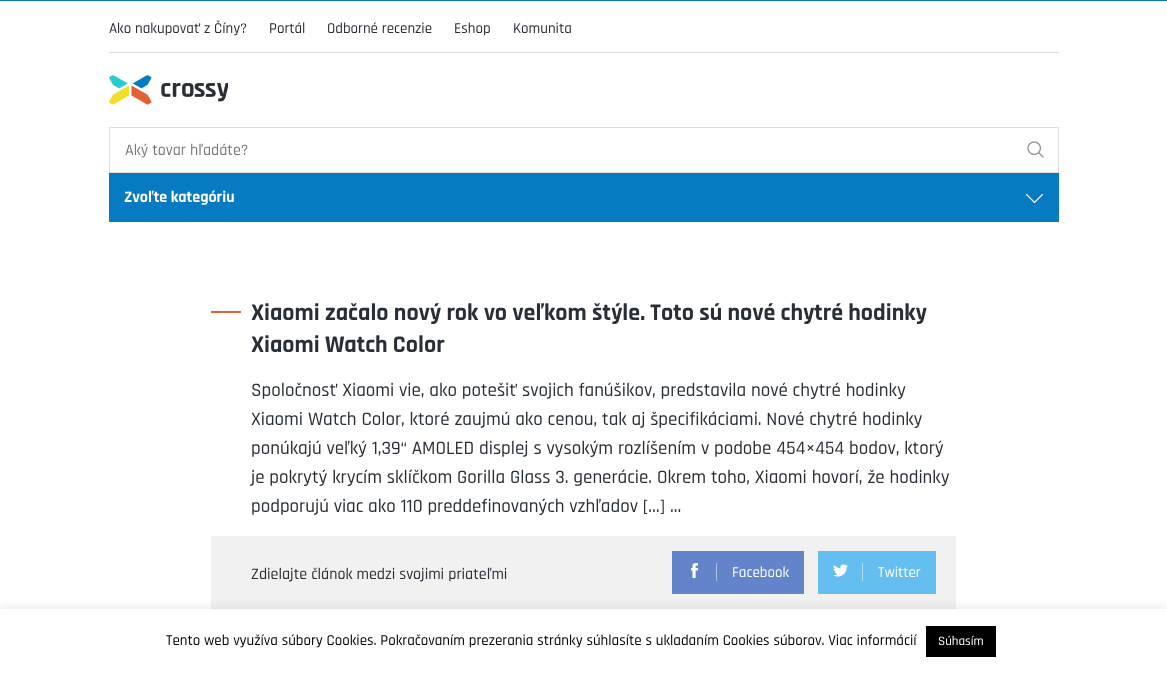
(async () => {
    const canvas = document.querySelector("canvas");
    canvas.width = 1167;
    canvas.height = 674;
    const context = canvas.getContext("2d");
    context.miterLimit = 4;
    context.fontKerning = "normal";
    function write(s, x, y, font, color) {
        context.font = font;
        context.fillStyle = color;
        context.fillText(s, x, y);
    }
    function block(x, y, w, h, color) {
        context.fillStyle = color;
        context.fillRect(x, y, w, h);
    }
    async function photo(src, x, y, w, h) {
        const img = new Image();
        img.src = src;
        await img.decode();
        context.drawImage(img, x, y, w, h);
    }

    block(0, 0, 1167, 674, "rgb(255, 255, 255)");
    block(0, 0, 1167, 1, "rgb(6, 123, 194)");
    block(109, 52, 950, 1, "rgb(224, 224, 224)");
    write("Ako nakupovať z Číny?", 109, 33, "500 15px Rajdhani", "rgb(41, 47, 54)");
    write("Portál", 269, 33, "500 15px Rajdhani", "rgb(41, 47, 54)");
    write("Odborné recenzie", 327, 33, "500 15px Rajdhani", "rgb(41, 47, 54)");
    write("Eshop", 454, 33, "500 15px Rajdhani", "rgb(41, 47, 54)");
    write("Komunita", 513, 33, "500 15px Rajdhani", "rgb(41, 47, 54)");
    await photo("media/1.png", 109, 75, 119, 30);
    context.strokeStyle = "rgb(224, 224, 224)";
    context.strokeRect(109.5, 127.5, 949, 45);
    write("Aký tovar hľadáte?", 125, 155, "500 16px Rajdhani", "rgb(121, 121, 121)");
    await photo("media/2.png", 1027, 141, 17, 17);
    block(109, 173, 950, 49, "rgb(6, 123, 194)");
    write("Zvoľte kategóriu", 124, 202, "bold 16px Rajdhani", "rgb(255, 255, 255)");
    await photo("media/3.png", 1026, 194, 17, 9);
    block(211, 311, 30, 2, "rgb(225, 96, 54)");
    write("Xiaomi začalo nový rok vo veľkom štýle. Toto sú nové chytré hodinky", 251, 320, "bold 24px Rajdhani", "rgb(41, 47, 54)");
    write("Xiaomi Watch Color", 251, 352, "bold 24px Rajdhani", "rgb(41, 47, 54)");
    write("Spoločnosť Xiaomi vie, ako potešiť svojich fanúšikov, predstavila nové chytré hodinky", 251, 396, "500 19px Rajdhani", "rgb(41, 47, 54)");
    write("Xiaomi Watch Color, ktoré zaujmú ako cenou, tak aj špecifikáciami. Nové chytré hodinky", 251, 425, "500 19px Rajdhani", "rgb(41, 47, 54)");
    write("ponúkajú veľký 1,39“ AMOLED displej s vysokým rozlíšením v podobe 454×454 bodov, ktorý", 251, 454, "500 19px Rajdhani", "rgb(41, 47, 54)");
    write("je pokrytý krycím sklíčkom Gorilla Glass 3. generácie. Okrem toho, Xiaomi hovorí, že hodinky", 251, 483, "500 19px Rajdhani", "rgb(41, 47, 54)");
    write("podporujú viac ako 110 preddefinovaných vzhľadov […] ...", 251, 512, "500 19px Rajdhani", "rgb(41, 47, 54)");
    block(211, 536, 745, 73, "rgb(241, 241, 241)");
    write("Zdielajte článok medzi svojimi priateľmi", 251, 579, "500 16px Rajdhani", "rgb(41, 47, 54)");
    block(672, 551, 132, 43, "rgb(99, 131, 203)");
    await photo("media/4.png", 691, 563, 7, 15);
    block(716, 563, 1, 18, "rgb(177, 193, 229)");
    write("Facebook", 732, 577, "500 15px Rajdhani", "rgb(255, 255, 255)");
    block(818, 551, 118, 43, "rgb(101, 190, 240)");
    await photo("media/5.png", 833, 564, 15, 13);
    block(862, 563, 1, 18, "rgb(178, 223, 248)");
    write("Twitter", 878, 577, "500 15px Rajdhani", "rgb(255, 255, 255)");
    context.fillStyle = "rgba(172, 171, 171, 0.3)";
    context.filter = "blur(5px)";
    context.beginPath();
    context.rect(0, 608, 1167, 65);
    context.fill();
    context.filter = "none";
    block(0, 609, 1167, 65, "rgb(255, 255, 255)");
    write("Tento web využíva súbory Cookies. Pokračovaním prezerania stránky súhlasíte s ukladaním Cookies súborov. Viac informácií", 166, 645, "500 15px Rajdhani", "rgb(0, 0, 0)");
    block(926, 626, 70, 31, "rgb(0, 0, 0)");
    write("Súhasím", 938, 645, "500 13px Rajdhani", "rgb(255, 255, 255)");
})();
